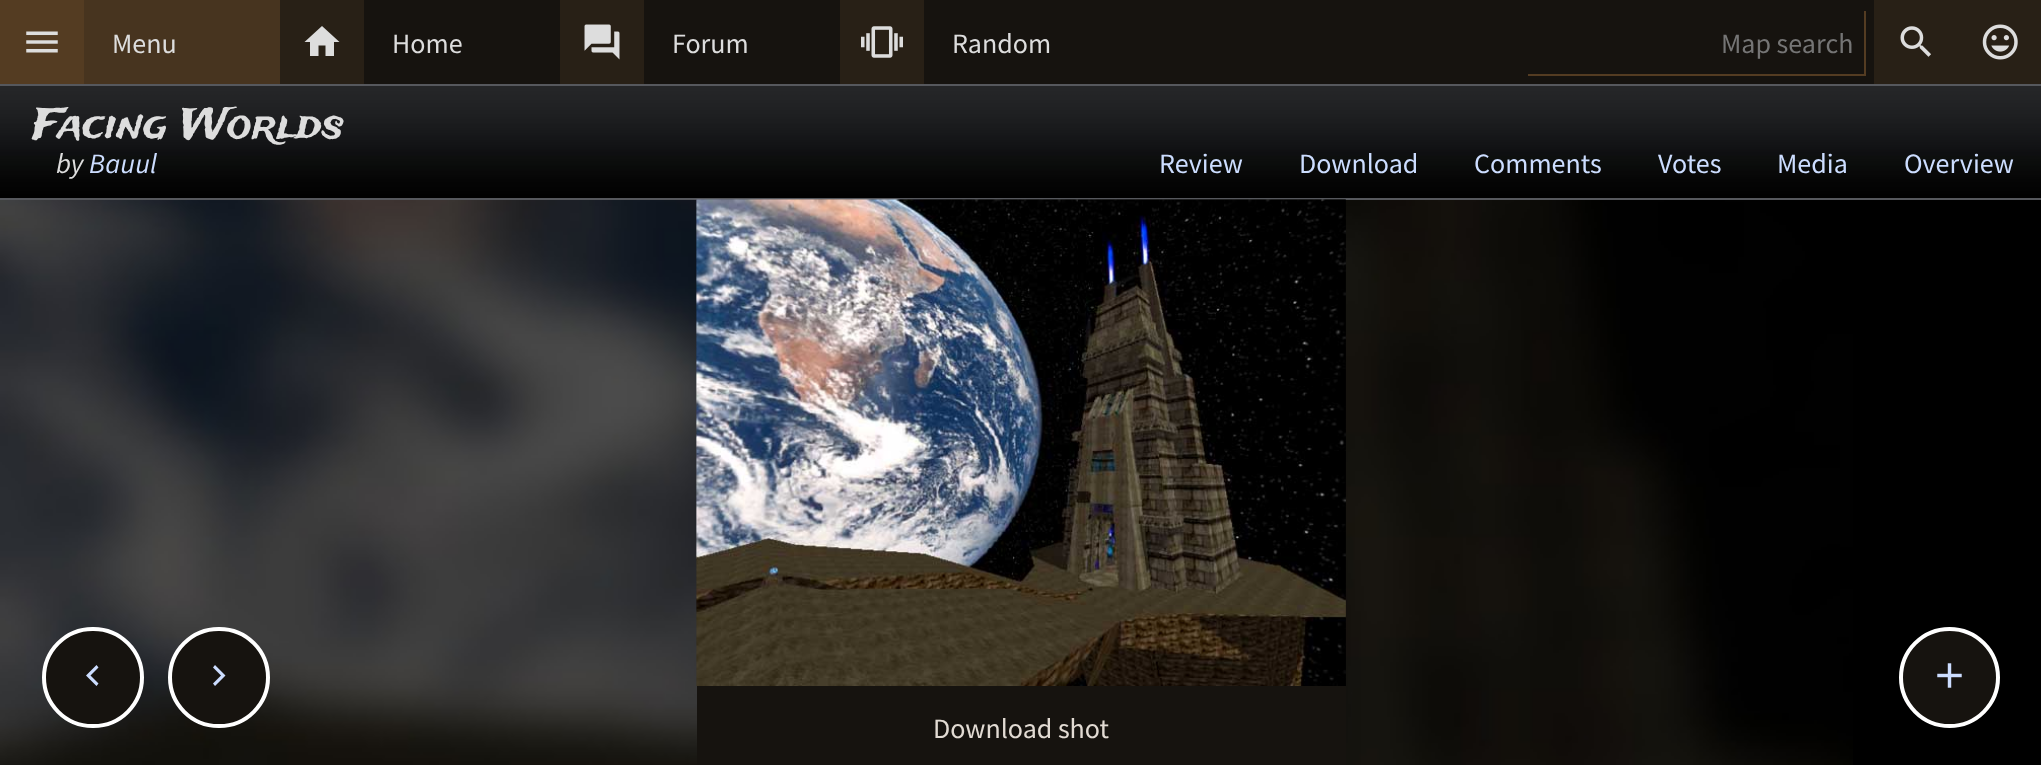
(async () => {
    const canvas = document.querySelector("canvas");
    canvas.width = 2041;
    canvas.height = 765;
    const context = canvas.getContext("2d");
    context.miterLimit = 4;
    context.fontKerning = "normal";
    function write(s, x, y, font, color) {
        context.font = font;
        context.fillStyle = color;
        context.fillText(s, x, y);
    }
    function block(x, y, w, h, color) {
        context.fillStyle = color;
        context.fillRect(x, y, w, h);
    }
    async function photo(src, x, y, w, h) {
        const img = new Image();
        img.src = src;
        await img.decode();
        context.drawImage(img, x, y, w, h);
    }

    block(0, 0, 2041, 765, "rgb(0, 0, 0)");
    block(364, 0, 1510, 84, "rgb(22, 19, 15)");
    block(0, 0, 84, 84, "rgb(84, 60, 34)");
    await photo("media/1.png", 26, 31, 32, 22);
    block(84, 0, 196, 84, "rgb(71, 52, 31)");
    write("Menu", 112, 53, "28px Source Sans Pro", "rgb(221, 221, 221)");
    block(280, 0, 84, 84, "rgb(40, 32, 22)");
    context.fillStyle = "rgb(221, 221, 221)";
    context.beginPath();
    context.moveTo(318.5, 56);
    context.lineTo(310, 56);
    context.lineTo(310, 42);
    context.lineTo(304.5, 42);
    context.lineTo(322, 26);
    context.lineTo(339.5, 42);
    context.lineTo(334, 42);
    context.lineTo(334, 56);
    context.lineTo(325.5, 56);
    context.lineTo(325.5, 45.5);
    context.lineTo(318.5, 45.5);
    context.closePath();
    context.fill();
    write("Home", 392, 53, "28px Source Sans Pro", "rgb(221, 221, 221)");
    block(560, 0, 84, 84, "rgb(40, 32, 22)");
    await photo("media/2.png", 584, 24, 36, 36);
    write("Forum", 672, 53, "28px Source Sans Pro", "rgb(221, 221, 221)");
    block(840, 0, 84, 84, "rgb(40, 32, 22)");
    await photo("media/3.png", 861, 26, 42, 32);
    write("Random", 952, 53, "28px Source Sans Pro", "rgb(221, 221, 221)");
    block(1864, 11, 2, 64, "rgb(84, 60, 34)");
    block(1528, 74, 338, 2, "rgb(84, 60, 34)");
    write("Map search", 1721, 53, "28px Source Sans Pro", "rgb(117, 117, 117)");
    block(1874, 0, 167, 84, "rgb(40, 32, 22)");
    await photo("media/4.png", 1900, 26, 31, 31);
    await photo("media/5.png", 1982, 24, 36, 36);
    await photo("media/6.png", 0, 86, 2041, 112);
    block(0, 84, 2041, 2, "rgb(86, 88, 93)");
    block(0, 198, 2041, 2, "rgb(86, 88, 93)");
    write("Facing Worlds", 32, 138, "42px Trade Winds", "rgb(221, 221, 221)");
    write("by", 56, 173, "italic 28px Source Sans Pro", "rgb(221, 221, 221)");
    write("Bauul", 89, 173, "italic 28px Source Sans Pro", "rgb(204, 221, 255)");
    write("Review", 1159, 173, "28px Source Sans Pro", "rgb(204, 221, 255)");
    write("Download", 1299, 173, "28px Source Sans Pro", "rgb(204, 221, 255)");
    write("Comments", 1474, 173, "28px Source Sans Pro", "rgb(204, 221, 255)");
    write("Votes", 1658, 173, "28px Source Sans Pro", "rgb(204, 221, 255)");
    write("Media", 1777, 173, "28px Source Sans Pro", "rgb(204, 221, 255)");
    write("Overview", 1904, 173, "28px Source Sans Pro", "rgb(204, 221, 255)");
    await photo("media/7.png", 0, 200, 1853, 565);
    context.fillStyle = "rgb(22, 19, 15)";
    context.beginPath();
    context.roundRect(44, 629, 98, 97, 48.5);
    context.fill();
    context.strokeStyle = "rgb(255, 255, 255)";
    context.lineWidth = 4;
    context.stroke();
    context.fillStyle = "rgb(204, 221, 255)";
    context.beginPath();
    context.moveTo(98.5, 667.5);
    context.lineTo(90.5, 675.5);
    context.lineTo(98.5, 683.5);
    context.lineTo(96.5, 686);
    context.lineTo(86, 675.5);
    context.lineTo(96.5, 665);
    context.closePath();
    context.fill();
    context.fillStyle = "rgb(22, 19, 15)";
    context.beginPath();
    context.roundRect(170, 629, 98, 97, 48.5);
    context.fill();
    context.stroke();
    context.fillStyle = "rgb(204, 221, 255)";
    context.beginPath();
    context.moveTo(215, 665);
    context.lineTo(225.5, 675.5);
    context.lineTo(215, 686);
    context.lineTo(213, 683.5);
    context.lineTo(221, 675.5);
    context.lineTo(213, 667.5);
    context.closePath();
    context.fill();
    context.fillStyle = "rgb(22, 19, 15)";
    context.beginPath();
    context.arc(1949.5, 677.5, 48.5, 0, Math.PI * 2);
    context.fill();
    context.stroke();
    await photo("media/8.png", 1937, 663, 25, 25);
    await photo("media/9.png", 696, 199, 650, 487);
    await photo("media/10.png", 696, 199, 650, 487);
    block(697, 686, 649, 79, "rgb(22, 19, 15)");
    write("Download shot", 933, 738, "28px Source Sans Pro", "rgb(226, 219, 211)");
})();
